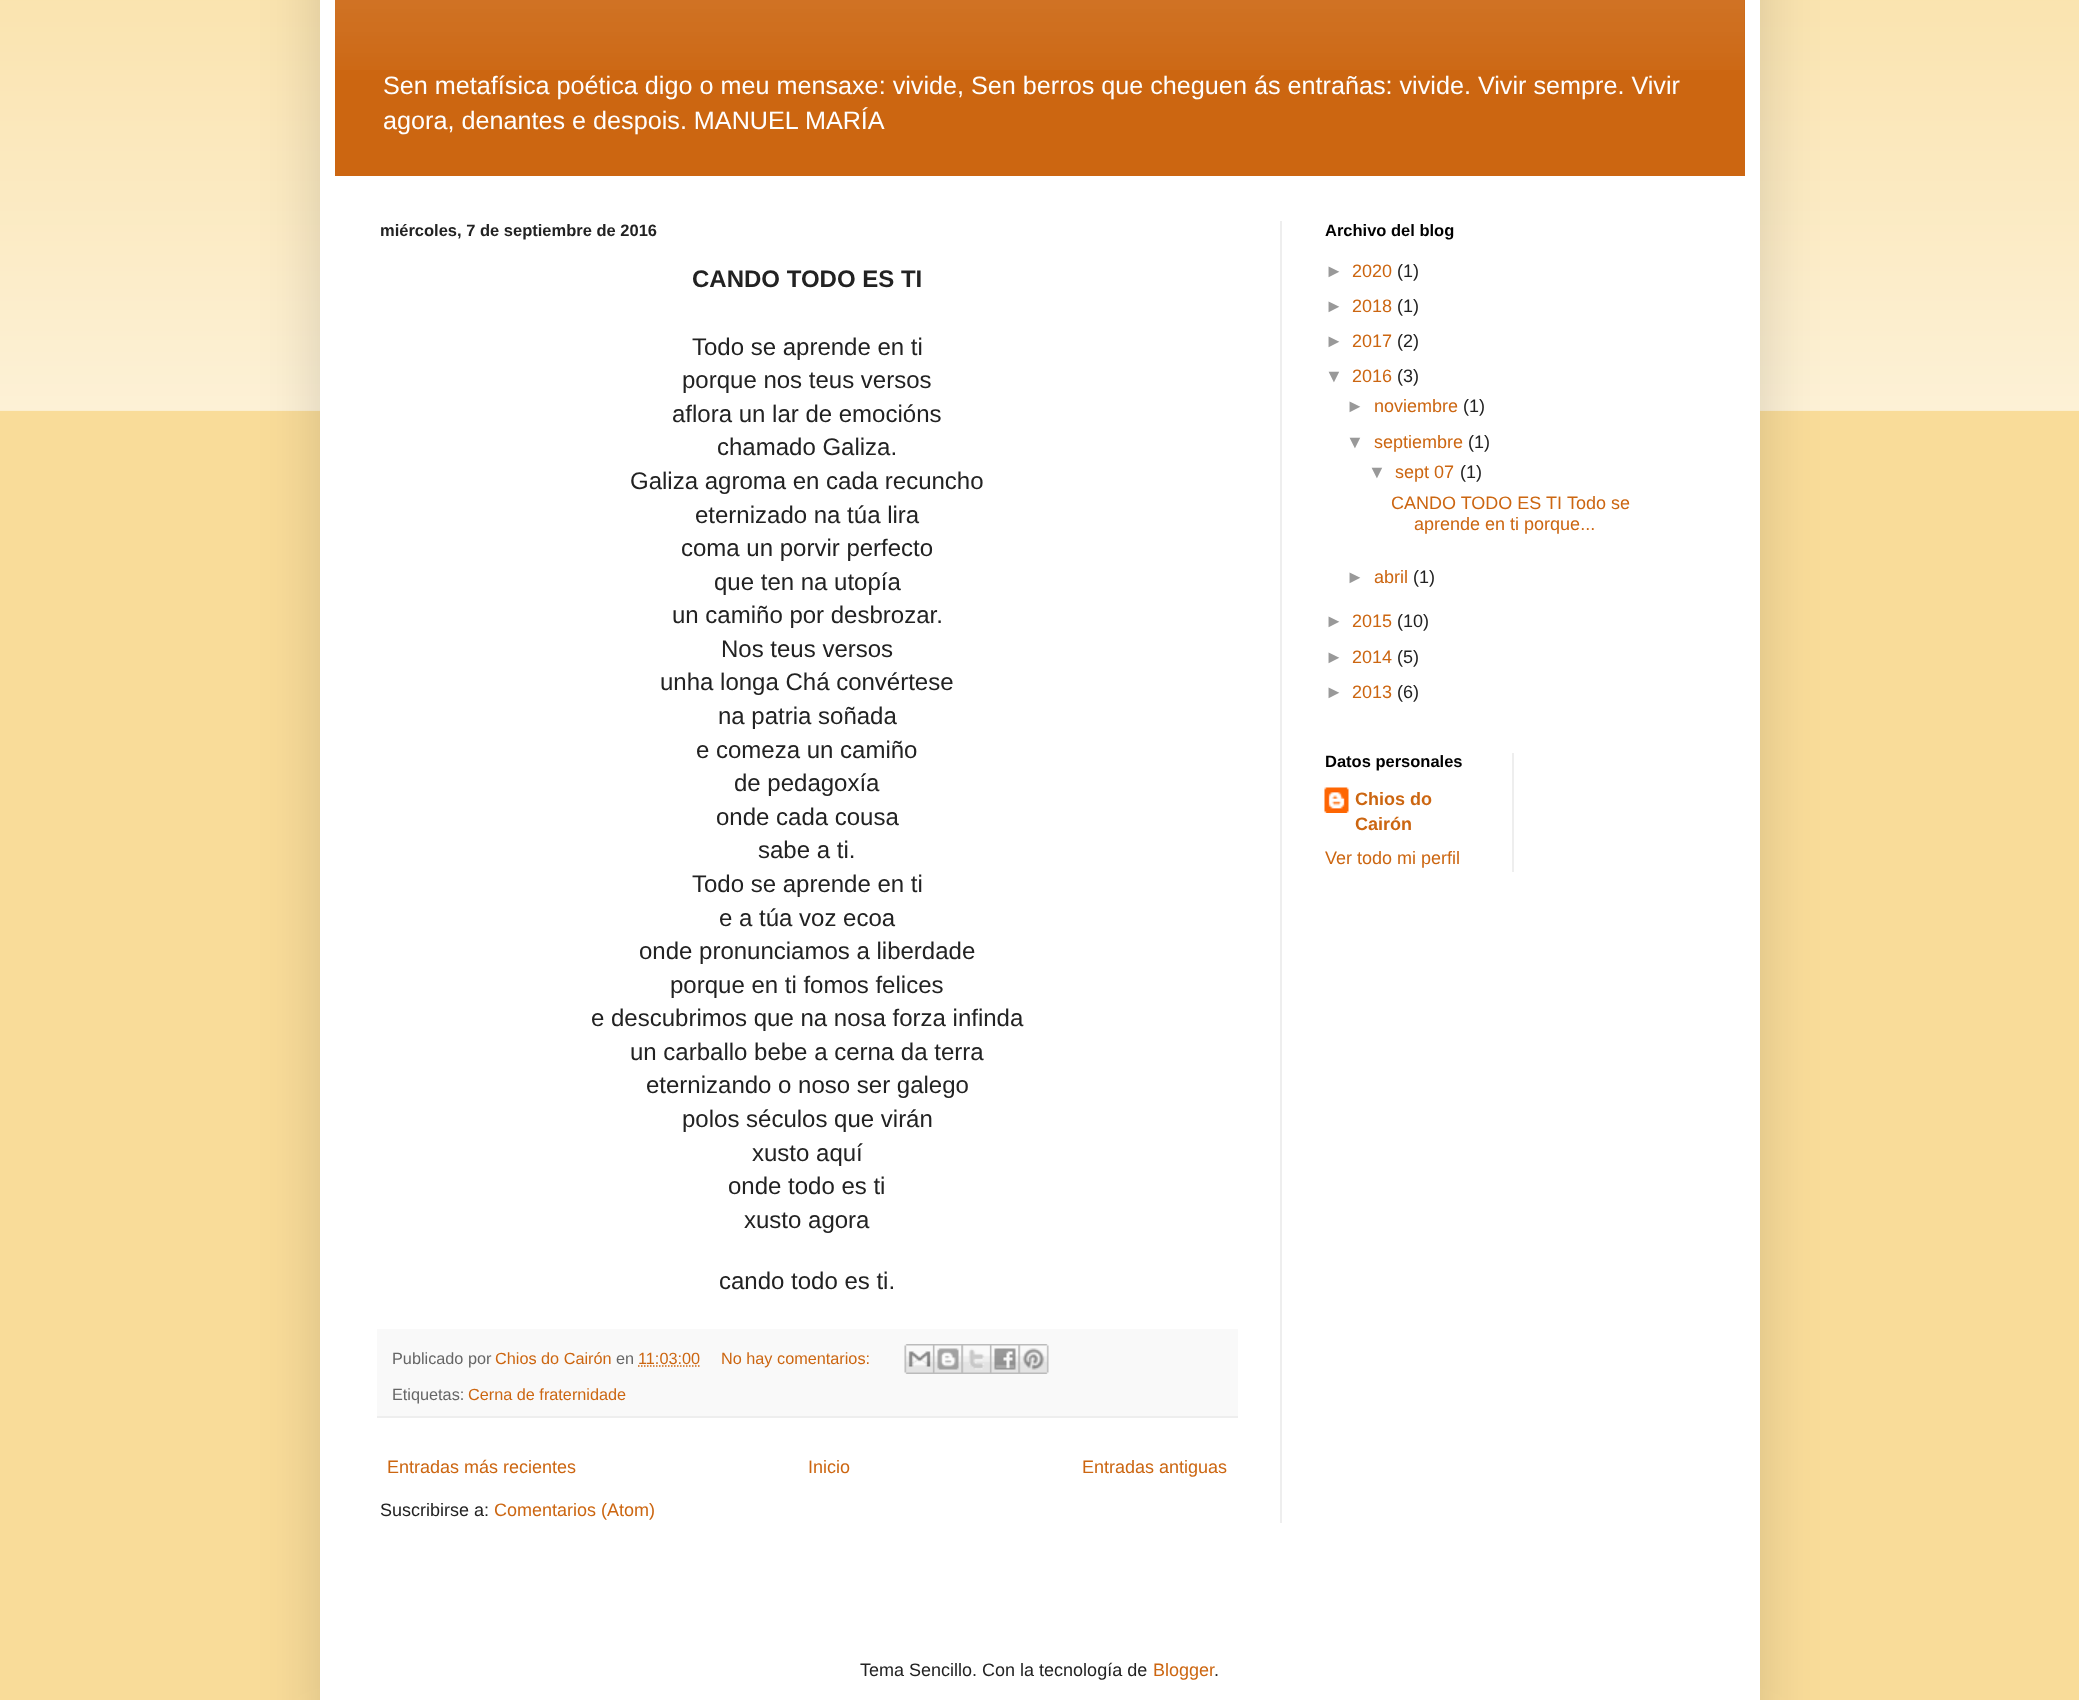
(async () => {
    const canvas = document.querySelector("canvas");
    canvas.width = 2079;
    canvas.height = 1700;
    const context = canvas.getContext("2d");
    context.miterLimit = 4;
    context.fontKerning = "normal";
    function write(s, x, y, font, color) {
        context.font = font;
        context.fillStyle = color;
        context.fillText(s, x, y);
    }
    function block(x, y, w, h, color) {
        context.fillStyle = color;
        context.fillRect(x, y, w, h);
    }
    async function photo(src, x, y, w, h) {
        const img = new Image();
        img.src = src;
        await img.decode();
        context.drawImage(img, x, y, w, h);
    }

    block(0, 0, 2079, 1700, "rgb(249, 220, 153)");
    await photo("media/1.png", 0, 0, 2079, 411);
    context.fillStyle = "rgba(0, 0, 0, 0.15)";
    context.filter = "blur(30px)";
    context.beginPath();
    context.rect(320, -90, 1440, 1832);
    context.fill();
    context.filter = "none";
    block(320, 0, 1440, 1700, "rgb(255, 255, 255)");
    block(335, 0, 1410, 176, "rgb(204, 102, 17)");
    await photo("media/2.png", 335, 0, 1410, 70);
    write("Sen metafísica poética digo o meu mensaxe: vivide, Sen berros que cheguen ás entrañas: vivide. Vivir sempre. Vivir", 383, 94, "25.2px Liberation Sans", "rgb(255, 255, 255)");
    write("agora, denantes e despois. MANUEL MARÍA", 383, 129, "25.2px Liberation Sans", "rgb(255, 255, 255)");
    block(1280, 221, 2, 1302, "rgb(238, 238, 238)");
    write("miércoles, 7 de septiembre de 2016", 380, 236, "bold 16.5px Liberation Sans", "rgb(34, 34, 34)");
    write("CANDO TODO ES TI", 692, 287, "bold 24px Liberation Sans", "rgb(34, 34, 34)");
    write("Todo se aprende en ti", 692, 355, "24px Liberation Sans", "rgb(34, 34, 34)");
    write("porque nos teus versos", 682, 388, "24px Liberation Sans", "rgb(34, 34, 34)");
    write("aflora un lar de emocións", 672, 422, "24px Liberation Sans", "rgb(34, 34, 34)");
    write("chamado Galiza.", 717, 455, "24px Liberation Sans", "rgb(34, 34, 34)");
    write("Galiza agroma en cada recuncho", 630, 489, "24px Liberation Sans", "rgb(34, 34, 34)");
    write("eternizado na túa lira", 695, 523, "24px Liberation Sans", "rgb(34, 34, 34)");
    write("coma un porvir perfecto", 681, 556, "24px Liberation Sans", "rgb(34, 34, 34)");
    write("que ten na utopía", 714, 590, "24px Liberation Sans", "rgb(34, 34, 34)");
    write("un camiño por desbrozar.", 672, 623, "24px Liberation Sans", "rgb(34, 34, 34)");
    write("Nos teus versos", 721, 657, "24px Liberation Sans", "rgb(34, 34, 34)");
    write("unha longa Chá convértese", 660, 690, "24px Liberation Sans", "rgb(34, 34, 34)");
    write("na patria soñada", 718, 724, "24px Liberation Sans", "rgb(34, 34, 34)");
    write("e comeza un camiño", 696, 758, "24px Liberation Sans", "rgb(34, 34, 34)");
    write("de pedagoxía", 734, 791, "24px Liberation Sans", "rgb(34, 34, 34)");
    write("onde cada cousa", 716, 825, "24px Liberation Sans", "rgb(34, 34, 34)");
    write("sabe a ti.", 758, 858, "24px Liberation Sans", "rgb(34, 34, 34)");
    write("Todo se aprende en ti", 692, 892, "24px Liberation Sans", "rgb(34, 34, 34)");
    write("e a túa voz ecoa", 719, 926, "24px Liberation Sans", "rgb(34, 34, 34)");
    write("onde pronunciamos a liberdade", 639, 959, "24px Liberation Sans", "rgb(34, 34, 34)");
    write("porque en ti fomos felices", 670, 993, "24px Liberation Sans", "rgb(34, 34, 34)");
    write("e descubrimos que na nosa forza infinda", 591, 1026, "24px Liberation Sans", "rgb(34, 34, 34)");
    write("un carballo bebe a cerna da terra", 630, 1060, "24px Liberation Sans", "rgb(34, 34, 34)");
    write("eternizando o noso ser galego", 646, 1093, "24px Liberation Sans", "rgb(34, 34, 34)");
    write("polos séculos que virán", 682, 1127, "24px Liberation Sans", "rgb(34, 34, 34)");
    write("xusto aquí", 752, 1161, "24px Liberation Sans", "rgb(34, 34, 34)");
    write("onde todo es ti", 728, 1194, "24px Liberation Sans", "rgb(34, 34, 34)");
    write("xusto agora", 744, 1228, "24px Liberation Sans", "rgb(34, 34, 34)");
    write("cando todo es ti.", 719, 1289, "24px Liberation Sans", "rgb(34, 34, 34)");
    block(377, 1329, 861, 87, "rgb(249, 249, 249)");
    block(377, 1416, 861, 2, "rgb(238, 238, 238)");
    write("Publicado por", 392, 1364, "16.25px Liberation Sans", "rgb(102, 102, 102)");
    write("Chios do Cairón", 495, 1364, "16.25px Liberation Sans", "rgb(204, 102, 17)");
    write("en", 616, 1364, "16.25px Liberation Sans", "rgb(102, 102, 102)");
    write("11:03:00", 638, 1364, "16.25px Liberation Sans", "rgb(204, 102, 17)");
    context.beginPath();
    context.moveTo(638, 1366);
    context.lineTo(700, 1366);
    context.strokeStyle = "rgb(204, 102, 17)";
    context.lineWidth = 1.5;
    context.setLineDash([1.5, 1.5]);
    context.stroke();
    write("No hay comentarios:", 721, 1364, "16.25px Liberation Sans", "rgb(204, 102, 17)");
    await photo("media/3.png", 904, 1344, 29, 30);
    await photo("media/4.png", 933, 1344, 29, 30);
    await photo("media/5.png", 961, 1344, 29, 30);
    await photo("media/6.png", 990, 1344, 29, 30);
    await photo("media/7.png", 1018, 1344, 31, 30);
    write("Etiquetas:", 392, 1400, "16.25px Liberation Sans", "rgb(102, 102, 102)");
    write("Cerna de fraternidade", 468, 1400, "16.25px Liberation Sans", "rgb(204, 102, 17)");
    write("Entradas más recientes", 387, 1473, "18px Liberation Sans", "rgb(204, 102, 17)");
    write("Inicio", 808, 1473, "18px Liberation Sans", "rgb(204, 102, 17)");
    write("Entradas antiguas", 1082, 1473, "18px Liberation Sans", "rgb(204, 102, 17)");
    write("Suscribirse a:", 380, 1516, "18px Liberation Sans", "rgb(34, 34, 34)");
    write("Comentarios (Atom)", 494, 1516, "18px Liberation Sans", "rgb(204, 102, 17)");
    write("Archivo del blog", 1325, 236, "bold 16.5px Liberation Sans", "rgb(0, 0, 0)");
    write("►", 1325, 277, "18px Liberation Sans", "rgb(153, 153, 153)");
    write("2020", 1352, 277, "18px Liberation Sans", "rgb(204, 102, 17)");
    write("(1)", 1397, 277, "18px Liberation Sans", "rgb(34, 34, 34)");
    write("►", 1325, 312, "18px Liberation Sans", "rgb(153, 153, 153)");
    write("2018", 1352, 312, "18px Liberation Sans", "rgb(204, 102, 17)");
    write("(1)", 1397, 312, "18px Liberation Sans", "rgb(34, 34, 34)");
    write("►", 1325, 347, "18px Liberation Sans", "rgb(153, 153, 153)");
    write("2017", 1352, 347, "18px Liberation Sans", "rgb(204, 102, 17)");
    write("(2)", 1397, 347, "18px Liberation Sans", "rgb(34, 34, 34)");
    write("▼", 1325, 382, "18px Liberation Sans", "rgb(153, 153, 153)");
    write("2016", 1352, 382, "18px Liberation Sans", "rgb(204, 102, 17)");
    write("(3)", 1397, 382, "18px Liberation Sans", "rgb(34, 34, 34)");
    write("►", 1346, 412, "18px Liberation Sans", "rgb(153, 153, 153)");
    write("noviembre", 1374, 412, "18px Liberation Sans", "rgb(204, 102, 17)");
    write("(1)", 1463, 412, "18px Liberation Sans", "rgb(34, 34, 34)");
    write("▼", 1346, 448, "18px Liberation Sans", "rgb(153, 153, 153)");
    write("septiembre", 1374, 448, "18px Liberation Sans", "rgb(204, 102, 17)");
    write("(1)", 1468, 448, "18px Liberation Sans", "rgb(34, 34, 34)");
    write("▼", 1368, 478, "18px Liberation Sans", "rgb(153, 153, 153)");
    write("sept 07", 1395, 478, "18px Liberation Sans", "rgb(204, 102, 17)");
    write("(1)", 1460, 478, "18px Liberation Sans", "rgb(34, 34, 34)");
    write("CANDO TODO ES TI", 1391, 509, "18px Liberation Sans", "rgb(204, 102, 17)");
    write("Todo se", 1567, 509, "18px Liberation Sans", "rgb(204, 102, 17)");
    write("aprende en ti porque...", 1414, 530, "18px Liberation Sans", "rgb(204, 102, 17)");
    write("►", 1346, 583, "18px Liberation Sans", "rgb(153, 153, 153)");
    write("abril", 1374, 583, "18px Liberation Sans", "rgb(204, 102, 17)");
    write("(1)", 1413, 583, "18px Liberation Sans", "rgb(34, 34, 34)");
    write("►", 1325, 627, "18px Liberation Sans", "rgb(153, 153, 153)");
    write("2015", 1352, 627, "18px Liberation Sans", "rgb(204, 102, 17)");
    write("(10)", 1397, 627, "18px Liberation Sans", "rgb(34, 34, 34)");
    write("►", 1325, 663, "18px Liberation Sans", "rgb(153, 153, 153)");
    write("2014", 1352, 663, "18px Liberation Sans", "rgb(204, 102, 17)");
    write("(5)", 1397, 663, "18px Liberation Sans", "rgb(34, 34, 34)");
    write("►", 1325, 698, "18px Liberation Sans", "rgb(153, 153, 153)");
    write("2013", 1352, 698, "18px Liberation Sans", "rgb(204, 102, 17)");
    write("(6)", 1397, 698, "18px Liberation Sans", "rgb(34, 34, 34)");
    write("Datos personales", 1325, 767, "bold 16.5px Liberation Sans", "rgb(0, 0, 0)");
    await photo("media/8.png", 1324, 787, 25, 26);
    write("Chios do", 1355, 805, "bold 18px Liberation Sans", "rgb(204, 102, 17)");
    write("Cairón", 1355, 830, "bold 18px Liberation Sans", "rgb(204, 102, 17)");
    write("Ver todo mi perfil", 1325, 864, "18px Liberation Sans", "rgb(204, 102, 17)");
    block(1512, 753, 2, 119, "rgb(238, 238, 238)");
    write("Tema Sencillo. Con la tecnología de", 860, 1676, "18px Liberation Sans", "rgb(34, 34, 34)");
    write("Blogger", 1153, 1676, "18px Liberation Sans", "rgb(204, 102, 17)");
    write(".", 1214, 1676, "18px Liberation Sans", "rgb(34, 34, 34)");
})();
